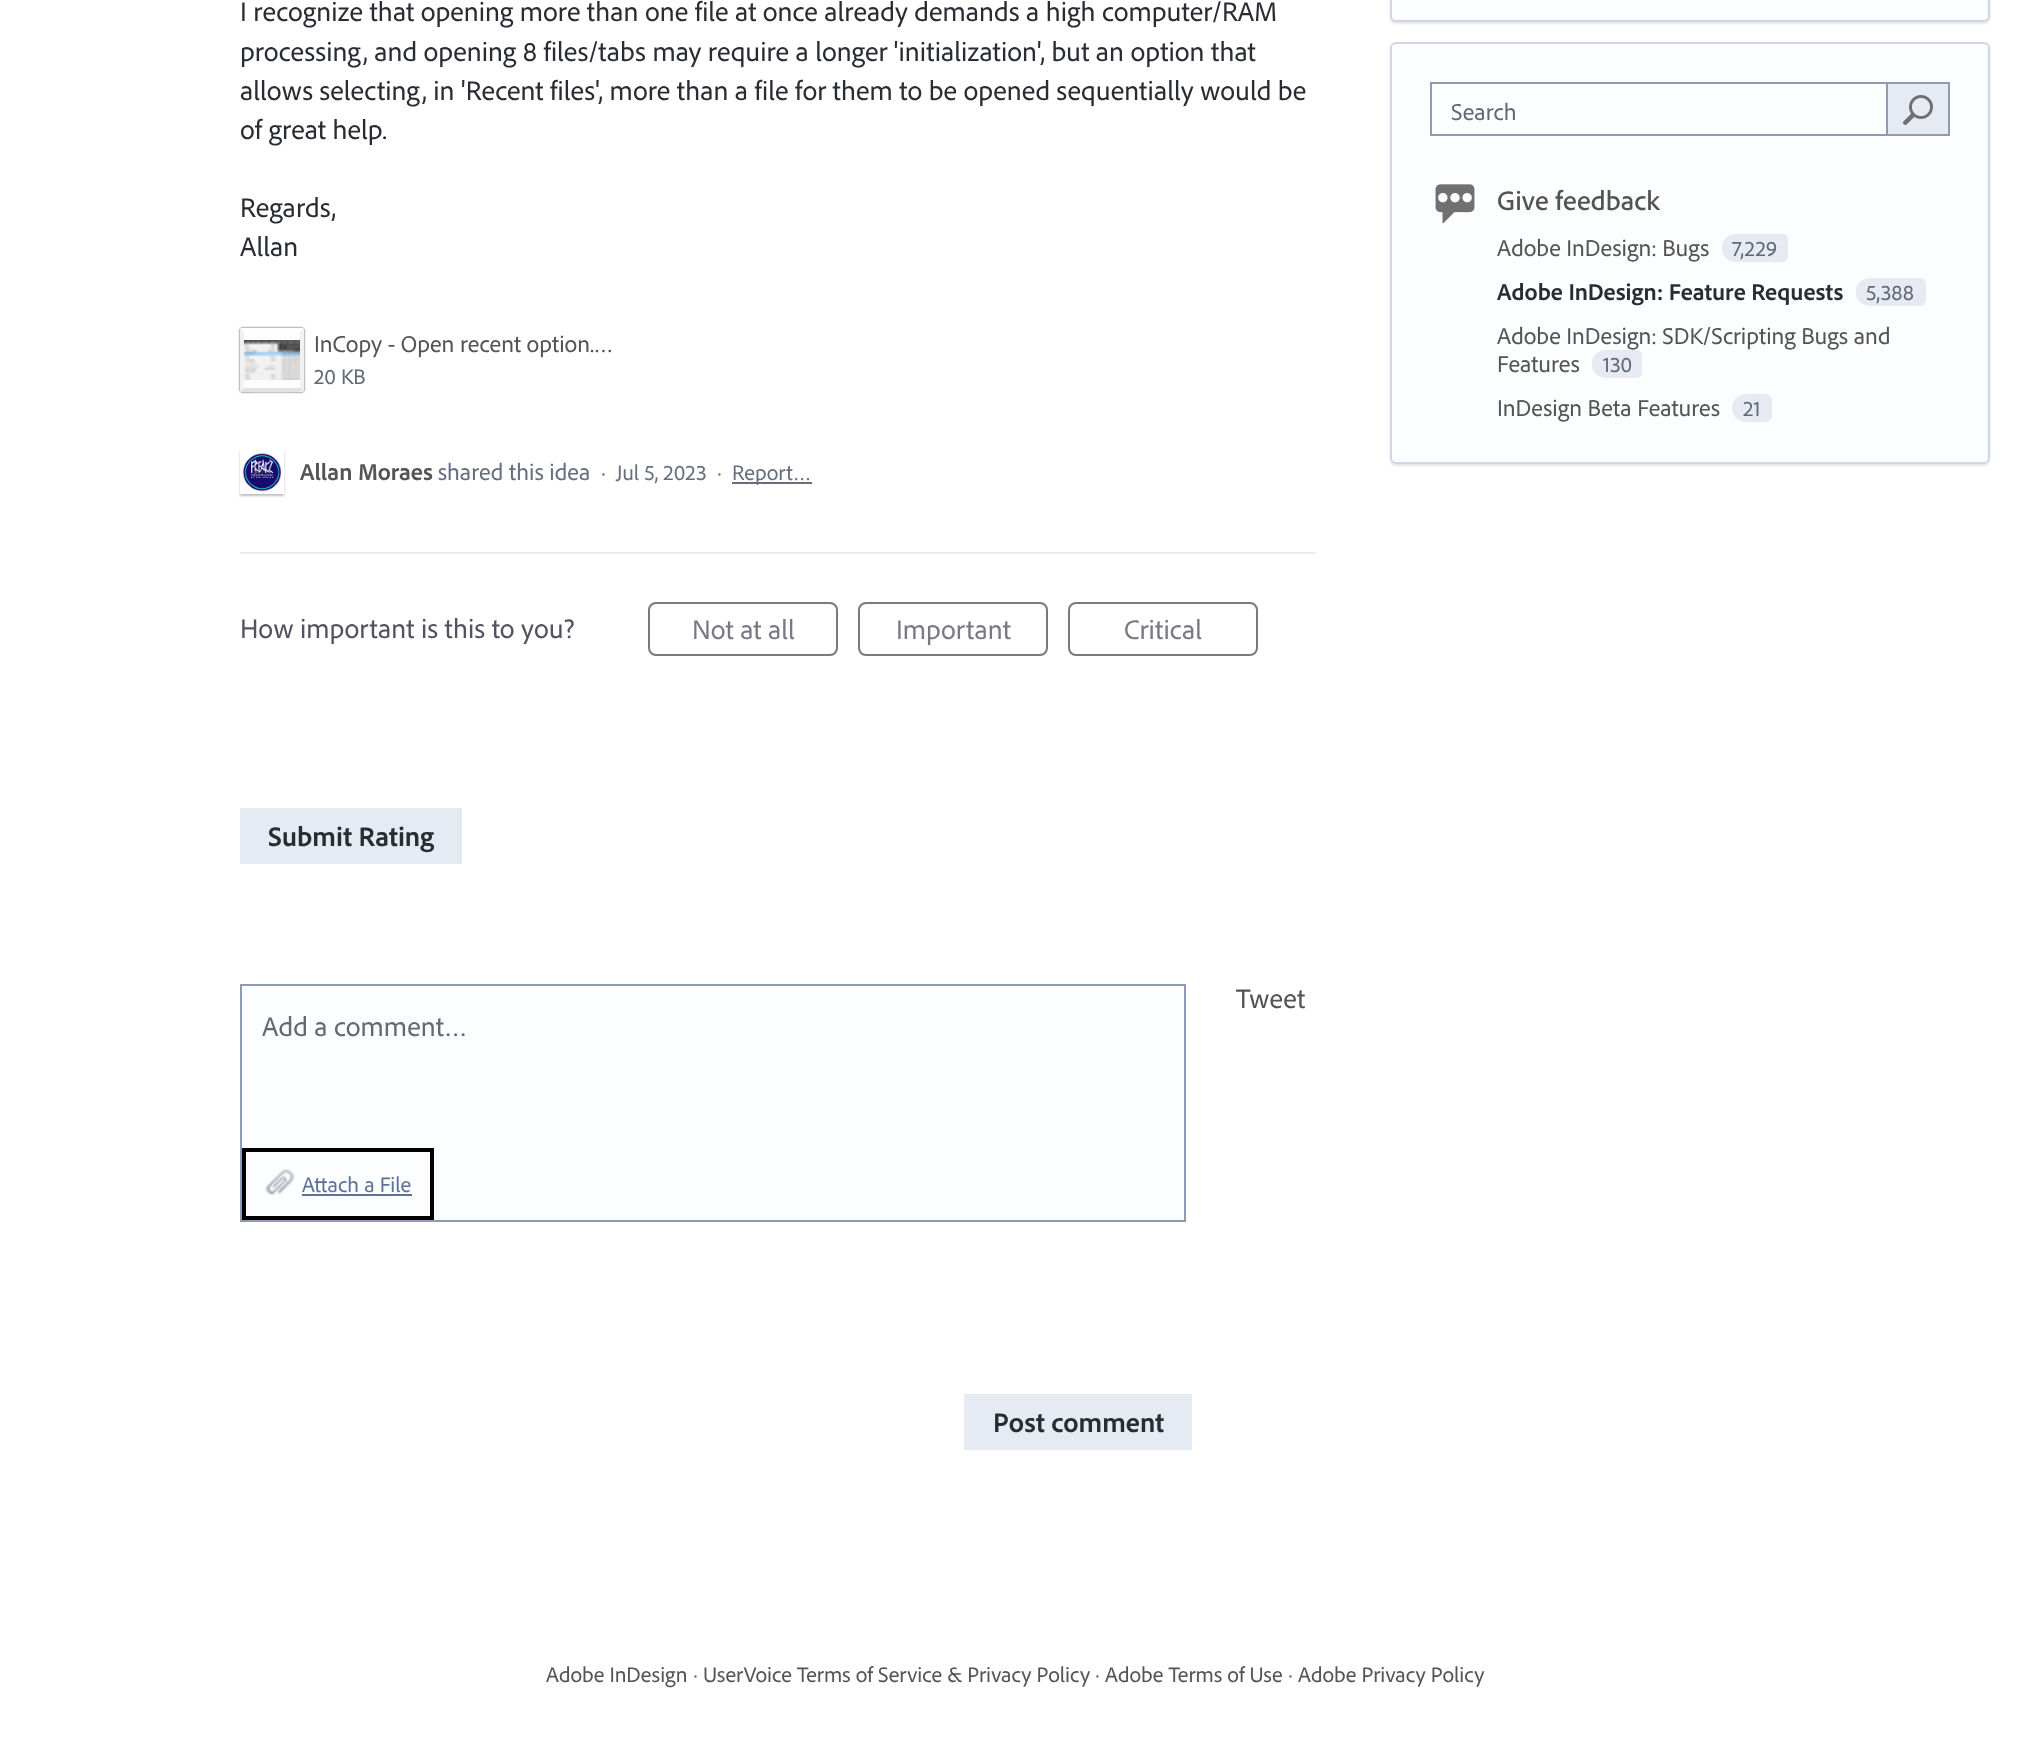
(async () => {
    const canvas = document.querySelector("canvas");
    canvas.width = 2029;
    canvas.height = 1761;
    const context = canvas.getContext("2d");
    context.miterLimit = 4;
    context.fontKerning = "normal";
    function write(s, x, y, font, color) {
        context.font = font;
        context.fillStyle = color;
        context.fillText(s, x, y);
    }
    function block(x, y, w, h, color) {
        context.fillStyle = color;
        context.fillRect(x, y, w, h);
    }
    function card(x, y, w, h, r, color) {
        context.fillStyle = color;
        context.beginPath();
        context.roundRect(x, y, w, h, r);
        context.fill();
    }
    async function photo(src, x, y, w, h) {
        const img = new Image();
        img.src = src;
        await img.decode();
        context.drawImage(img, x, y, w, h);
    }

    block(0, 0, 2029, 1761, "rgb(255, 255, 255)");
    write("I recognize that opening more than one file at once already demands a high computer/RAM", 240, 21, "28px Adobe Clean", "rgb(41, 44, 51)");
    write("processing, and opening 8 files/tabs may require a longer 'initialization', but an option that", 240, 61, "28px Adobe Clean", "rgb(41, 44, 51)");
    write("allows selecting, in 'Recent files', more than a file for them to be opened sequentially would be", 240, 100, "28px Adobe Clean", "rgb(41, 44, 51)");
    write("of great help.", 240, 139, "28px Adobe Clean", "rgb(41, 44, 51)");
    write("Regards,", 240, 217, "28px Adobe Clean", "rgb(41, 44, 51)");
    write("Allan", 240, 256, "28px Adobe Clean", "rgb(41, 44, 51)");
    context.fillStyle = "rgba(0, 0, 0, 0.75)";
    context.filter = "blur(1px)";
    context.beginPath();
    context.roundRect(240, 328, 64, 64, 2);
    context.fill();
    context.filter = "none";
    card(240, 328, 64, 64, 2, "rgb(252, 253, 255)");
    await photo("media/1.png", 244, 340, 56, 40);
    context.fillStyle = "rgb(254, 254, 254)";
    context.beginPath();
    context.moveTo(242, 328);
    context.lineTo(241, 329);
    context.lineTo(244, 332);
    context.lineTo(300, 332);
    context.lineTo(303, 329);
    context.lineTo(302, 328);
    context.closePath();
    context.fill();
    context.fillStyle = "rgb(241, 241, 241)";
    context.beginPath();
    context.moveTo(304, 390);
    context.bezierCurveTo(304, 383, 305, 330, 303, 329);
    context.lineTo(300, 332);
    context.lineTo(300, 388);
    context.lineTo(303, 391);
    context.closePath();
    context.fill();
    context.fillStyle = "rgb(226, 226, 226)";
    context.beginPath();
    context.moveTo(242, 392);
    context.bezierCurveTo(249, 392, 302, 393, 303, 391);
    context.lineTo(300, 388);
    context.lineTo(244, 388);
    context.lineTo(241, 391);
    context.closePath();
    context.fill();
    context.fillStyle = "rgb(241, 241, 241)";
    context.beginPath();
    context.moveTo(244, 332);
    context.lineTo(241, 329);
    context.lineTo(240, 330);
    context.lineTo(240, 390);
    context.lineTo(241, 391);
    context.lineTo(244, 388);
    context.closePath();
    context.fill();
    write("InCopy - Open recent option.…", 314, 352, "24px Adobe Clean", "rgb(84, 84, 84)");
    write("20 KB", 314, 384, "22px Adobe Clean", "rgb(97, 105, 115)");
    context.save();
    context.beginPath();
    context.moveTo(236, 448);
    context.lineTo(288, 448);
    context.lineTo(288, 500);
    context.lineTo(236, 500);
    context.closePath();
    context.moveTo(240, 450);
    context.lineTo(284, 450);
    context.lineTo(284, 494);
    context.lineTo(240, 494);
    context.closePath();
    context.clip("evenodd");
    context.fillStyle = "rgba(0, 0, 0, 0.25)";
    context.filter = "blur(1px)";
    context.beginPath();
    context.rect(240, 452, 44, 44);
    context.fill();
    context.filter = "none";
    context.restore();
    await photo("media/2.png", 242, 453, 40, 39);
    write("Allan Moraes", 300, 480, "bold 24px Adobe Clean", "rgb(84, 84, 84)");
    write("shared this idea", 438, 480, "24px Adobe Clean", "rgb(102, 111, 128)");
    write("·", 601, 480, "22px Adobe Clean", "rgb(97, 105, 115)");
    write("Jul 5, 2023", 616, 480, "22px Adobe Clean", "rgb(102, 111, 128)");
    write("·", 717, 480, "22px Adobe Clean", "rgb(97, 105, 115)");
    block(732, 482, 80, 2, "rgb(102, 111, 128)");
    write("Report…", 732, 480, "22px Adobe Clean", "rgb(102, 111, 128)");
    block(240, 552, 1076, 2, "rgb(235, 235, 241)");
    write("How important is this to you?", 240, 638, "28px Adobe Clean", "rgb(82, 82, 96)");
    context.beginPath();
    context.roundRect(649, 603, 188, 52, 7);
    context.strokeStyle = "rgb(121, 121, 134)";
    context.lineWidth = 2;
    context.stroke();
    write("Not at all", 692, 639, "28px Adobe Clean", "rgb(121, 121, 134)");
    context.beginPath();
    context.roundRect(859, 603, 188, 52, 7);
    context.stroke();
    write("Important", 896, 639, "28px Adobe Clean", "rgb(121, 121, 134)");
    context.beginPath();
    context.roundRect(1069, 603, 188, 52, 7);
    context.stroke();
    write("Critical", 1124, 639, "28px Adobe Clean", "rgb(121, 121, 134)");
    block(240, 808, 222, 56, "rgb(230, 234, 242)");
    write("Submit Rating", 268, 846, "bold 28px Adobe Clean", "rgb(41, 44, 51)");
    write("Tweet", 1236, 1008, "28px Adobe Clean", "rgb(84, 84, 84)");
    context.fillStyle = "rgb(252, 253, 255)";
    context.beginPath();
    context.rect(241, 985, 944, 236);
    context.fill();
    context.strokeStyle = "rgb(143, 155, 179)";
    context.stroke();
    write("Add a comment…", 262, 1036, "28px Adobe Clean", "rgb(97, 105, 115)");
    await photo("media/3.png", 265, 1169, 30, 26);
    context.strokeStyle = "rgb(0, 0, 0)";
    context.lineWidth = 4;
    context.strokeRect(244, 1150, 188, 68);
    write("Attach a File", 302, 1192, "22px Adobe Clean", "rgb(93, 114, 152)");
    block(302, 1194, 110, 2, "rgb(93, 114, 152)");
    block(964, 1394, 228, 56, "rgb(230, 234, 242)");
    write("Post comment", 993, 1432, "bold 28px Adobe Clean", "rgb(41, 44, 51)");
    context.fillStyle = "rgba(0, 0, 0, 0.1)";
    context.filter = "blur(1px)";
    context.beginPath();
    context.roundRect(1390, -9, 600, 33, 6);
    context.fill();
    context.filter = "none";
    context.fillStyle = "rgb(252, 253, 255)";
    context.beginPath();
    context.roundRect(1391, -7, 598, 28, 5);
    context.fill();
    context.strokeStyle = "rgb(207, 215, 230)";
    context.lineWidth = 2;
    context.stroke();
    context.fillStyle = "rgba(0, 0, 0, 0.1)";
    context.filter = "blur(1px)";
    context.beginPath();
    context.roundRect(1390, 44, 600, 422, 6);
    context.fill();
    context.filter = "none";
    context.fillStyle = "rgb(252, 253, 255)";
    context.beginPath();
    context.roundRect(1391, 43, 598, 420, 5);
    context.fill();
    context.stroke();
    context.strokeStyle = "rgb(143, 155, 179)";
    context.strokeRect(1431, 83, 518, 52);
    write("Search", 1451, 120, "24px Adobe Clean", "rgb(97, 105, 115)");
    block(1888, 84, 60, 50, "rgb(230, 234, 242)");
    block(1886, 84, 2, 50, "rgb(143, 155, 179)");
    await photo("media/4.png", 1903, 95, 30, 30);
    await photo("media/5.png", 1435, 184, 40, 40);
    write("Give feedback", 1497, 210, "500 28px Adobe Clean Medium", "rgb(84, 84, 84)");
    write("Adobe InDesign: Bugs", 1497, 256, "24px Adobe Clean", "rgb(84, 84, 84)");
    context.fillStyle = "rgb(231, 234, 242)";
    context.beginPath();
    context.roundRect(1722, 234, 56, 28, [14, 0, 0, 14]);
    context.fill();
    write("7,229", 1732, 256, "22px Adobe Clean", "rgb(97, 105, 115)");
    context.fillStyle = "rgb(231, 234, 242)";
    context.beginPath();
    context.roundRect(1778, 234, 10, 28, [0, 5, 5, 0]);
    context.fill();
    write("Adobe InDesign: Feature Requests", 1497, 300, "bold 24px Adobe Clean", "rgb(41, 44, 51)");
    context.fillStyle = "rgb(231, 234, 242)";
    context.beginPath();
    context.roundRect(1856, 278, 58, 28, [14, 0, 0, 14]);
    context.fill();
    write("5,388", 1866, 300, "22px Adobe Clean", "rgb(97, 105, 115)");
    context.fillStyle = "rgb(231, 234, 242)";
    context.beginPath();
    context.roundRect(1914, 278, 12, 28, [0, 6, 6, 0]);
    context.fill();
    write("Adobe InDesign: SDK/Scripting Bugs and", 1497, 344, "24px Adobe Clean", "rgb(84, 84, 84)");
    write("Features", 1497, 372, "24px Adobe Clean", "rgb(84, 84, 84)");
    context.fillStyle = "rgb(231, 234, 242)";
    context.beginPath();
    context.roundRect(1592, 350, 40, 28, [14, 0, 0, 14]);
    context.fill();
    write("130", 1603, 372, "22px Adobe Clean", "rgb(97, 105, 115)");
    context.fillStyle = "rgb(231, 234, 242)";
    context.beginPath();
    context.roundRect(1632, 350, 10, 28, [0, 5, 5, 0]);
    context.fill();
    write("InDesign Beta Features", 1497, 416, "24px Adobe Clean", "rgb(84, 84, 84)");
    context.fillStyle = "rgb(231, 234, 242)";
    context.beginPath();
    context.roundRect(1732, 394, 28, 28, [14, 0, 0, 14]);
    context.fill();
    write("21", 1743, 416, "22px Adobe Clean", "rgb(97, 105, 115)");
    context.fillStyle = "rgb(231, 234, 242)";
    context.beginPath();
    context.roundRect(1760, 394, 12, 28, [0, 6, 6, 0]);
    context.fill();
    write("Adobe InDesign", 546, 1682, "22px Adobe Clean", "rgb(84, 84, 84)");
    write("·", 693, 1682, "22px Adobe Clean", "rgb(97, 105, 115)");
    write("UserVoice Terms of Service & Privacy Policy", 703, 1682, "22px Adobe Clean", "rgb(84, 84, 84)");
    write("·", 1095, 1682, "22px Adobe Clean", "rgb(97, 105, 115)");
    write("Adobe Terms of Use", 1105, 1682, "22px Adobe Clean", "rgb(84, 84, 84)");
    write("·", 1288, 1682, "22px Adobe Clean", "rgb(97, 105, 115)");
    write("Adobe Privacy Policy", 1298, 1682, "22px Adobe Clean", "rgb(84, 84, 84)");
})();
